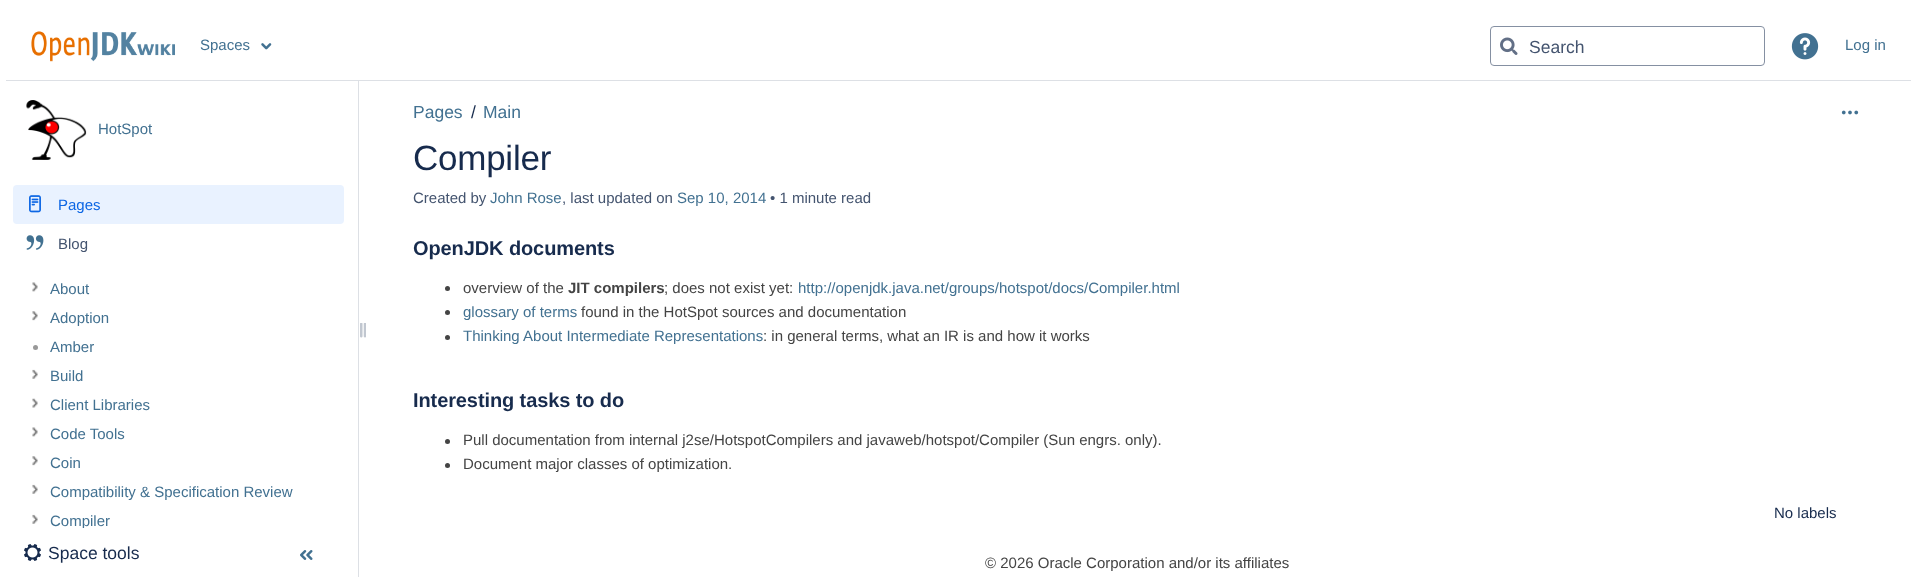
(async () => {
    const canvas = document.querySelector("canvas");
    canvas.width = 1917;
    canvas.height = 577;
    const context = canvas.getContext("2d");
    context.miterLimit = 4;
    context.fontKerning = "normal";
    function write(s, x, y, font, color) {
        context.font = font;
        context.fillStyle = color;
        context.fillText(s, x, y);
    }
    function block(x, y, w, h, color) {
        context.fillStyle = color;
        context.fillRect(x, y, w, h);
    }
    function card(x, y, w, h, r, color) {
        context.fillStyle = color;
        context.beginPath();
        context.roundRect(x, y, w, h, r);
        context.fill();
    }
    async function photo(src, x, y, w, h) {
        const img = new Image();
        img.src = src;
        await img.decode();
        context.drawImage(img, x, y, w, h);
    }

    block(0, 0, 1917, 577, "rgb(255, 255, 255)");
    block(6, 80, 1905, 1, "rgb(221, 224, 229)");
    await photo("media/1.png", 31, 31, 144, 31);
    write("Spaces", 200, 50, "15px Liberation Sans", "rgb(66, 113, 145)");
    await photo("media/2.png", 261, 43, 11, 7);
    context.beginPath();
    context.roundRect(1490.5, 26.5, 274, 39, 3.5);
    context.strokeStyle = "rgb(133, 144, 162)";
    context.stroke();
    await photo("media/3.png", 1500, 37, 18, 18);
    write("Search", 1529, 53, "17.5px Liberation Sans", "rgb(68, 84, 111)");
    await photo("media/4.png", 1791, 33, 28, 27);
    write("Log in", 1845, 50, "15px Liberation Sans", "rgb(66, 113, 145)");
    await photo("media/5.png", 26, 100, 61, 60);
    write("HotSpot", 98, 134, "15px Liberation Sans", "rgb(66, 113, 145)");
    card(13, 185, 331, 39, 4, "rgb(233, 242, 255)");
    await photo("media/6.png", 29, 195, 12, 18);
    write("Pages", 58, 210, "15px Liberation Sans", "rgb(12, 102, 228)");
    await photo("media/7.png", 26, 235, 18, 15);
    write("Blog", 58, 249, "15px Liberation Sans", "rgb(68, 84, 111)");
    await photo("media/8.png", 32, 282, 6, 10);
    write("About", 50, 294, "15px Liberation Sans", "rgb(66, 113, 145)");
    await photo("media/9.png", 32, 311, 6, 10);
    write("Adoption", 50, 323, "15px Liberation Sans", "rgb(66, 113, 145)");
    context.fillStyle = "rgb(153, 153, 153)";
    context.beginPath();
    context.arc(35.5, 347.5, 2.5, 0, Math.PI * 2);
    context.fill();
    write("Amber", 50, 352, "15px Liberation Sans", "rgb(66, 113, 145)");
    await photo("media/10.png", 32, 369, 6, 10);
    write("Build", 50, 381, "15px Liberation Sans", "rgb(66, 113, 145)");
    await photo("media/11.png", 32, 398, 6, 10);
    write("Client Libraries", 50, 410, "15px Liberation Sans", "rgb(66, 113, 145)");
    await photo("media/8.png", 32, 427, 6, 10);
    write("Code Tools", 50, 439, "15px Liberation Sans", "rgb(66, 113, 145)");
    await photo("media/9.png", 32, 456, 6, 10);
    write("Coin", 50, 468, "15px Liberation Sans", "rgb(66, 113, 145)");
    await photo("media/10.png", 32, 484, 6, 10);
    write("Compatibility & Specification Review", 50, 497, "15px Liberation Sans", "rgb(66, 113, 145)");
    await photo("media/10.png", 32, 514, 6, 10);
    context.save();
    context.beginPath();
    context.rect(25, 508, 319, 20);
    context.clip();
    write("Compiler", 50, 526, "15px Liberation Sans", "rgb(66, 113, 145)");
    context.restore();
    await photo("media/12.png", 360, 323, 6, 15);
    block(358, 81, 1, 496, "rgb(221, 224, 229)");
    await photo("media/13.png", 24, 544, 17, 17);
    write("Space tools", 48, 559, "17.5px Liberation Sans", "rgb(23, 43, 77)");
    await photo("media/14.png", 300, 550, 13, 10);
    write("Pages", 413, 118, "17.5px Liberation Sans", "rgb(66, 113, 145)");
    write("/", 471, 118, "17.5px Liberation Sans", "rgb(23, 43, 77)");
    write("Main", 483, 118, "17.5px Liberation Sans", "rgb(66, 113, 145)");
    context.letterSpacing = "-0.25px";
    write("Compiler", 413, 170, "35px Liberation Sans", "rgb(23, 43, 77)");
    await photo("media/15.png", 1841, 110, 18, 5);
    context.letterSpacing = "0px";
    write("Created by", 413, 203, "15px Liberation Sans", "rgb(68, 84, 111)");
    write("John Rose", 490, 203, "15px Liberation Sans", "rgb(66, 113, 145)");
    write(", last updated on", 562, 203, "15px Liberation Sans", "rgb(68, 84, 111)");
    write("Sep 10, 2014", 677, 203, "15px Liberation Sans", "rgb(66, 113, 145)");
    write("• 1 minute read", 770, 203, "15px Liberation Sans", "rgb(68, 84, 111)");
    context.letterSpacing = "-0.1px";
    write("OpenJDK documents", 413, 255, "bold 20px Liberation Sans", "rgb(23, 43, 77)");
    context.fillStyle = "rgb(68, 68, 68)";
    context.beginPath();
    context.arc(447.5, 288.5, 2.5, 0, Math.PI * 2);
    context.fill();
    context.letterSpacing = "0px";
    write("overview of the", 463, 293, "15px Liberation Sans", "rgb(68, 68, 68)");
    write("JIT compilers", 568, 293, "bold 15px Liberation Sans", "rgb(68, 68, 68)");
    write("; does not exist yet:", 664, 293, "15px Liberation Sans", "rgb(68, 68, 68)");
    write("http://openjdk.java.net/groups/hotspot/docs/Compiler.html", 798, 293, "15px Liberation Sans", "rgb(66, 113, 145)");
    context.fillStyle = "rgb(68, 68, 68)";
    context.beginPath();
    context.arc(447.5, 312.5, 2.5, 0, Math.PI * 2);
    context.fill();
    write("glossary of terms", 463, 317, "15px Liberation Sans", "rgb(66, 113, 145)");
    write("found in the HotSpot sources and documentation", 581, 317, "15px Liberation Sans", "rgb(68, 68, 68)");
    context.beginPath();
    context.arc(447.5, 337.5, 2.5, 0, Math.PI * 2);
    context.fill();
    write("Thinking About Intermediate Representations", 463, 341, "15px Liberation Sans", "rgb(66, 113, 145)");
    write(": in general terms, what an IR is and how it works", 763, 341, "15px Liberation Sans", "rgb(68, 68, 68)");
    context.letterSpacing = "-0.1px";
    write("Interesting tasks to do", 413, 407, "bold 20px Liberation Sans", "rgb(23, 43, 77)");
    context.fillStyle = "rgb(68, 68, 68)";
    context.beginPath();
    context.arc(447.5, 441.5, 2.5, 0, Math.PI * 2);
    context.fill();
    context.letterSpacing = "0px";
    write("Pull documentation from internal j2se/HotspotCompilers and javaweb/hotspot/Compiler (Sun engrs. only).", 463, 445, "15px Liberation Sans", "rgb(68, 68, 68)");
    context.beginPath();
    context.arc(447.5, 465.5, 2.5, 0, Math.PI * 2);
    context.fill();
    write("Document major classes of optimization.", 463, 469, "15px Liberation Sans", "rgb(68, 68, 68)");
    write("No labels", 1774, 518, "15px Liberation Sans", "rgb(23, 43, 77)");
    write("© 2026 Oracle Corporation and/or its affiliates", 985, 568, "15px Liberation Sans", "rgb(68, 68, 68)");
})();
